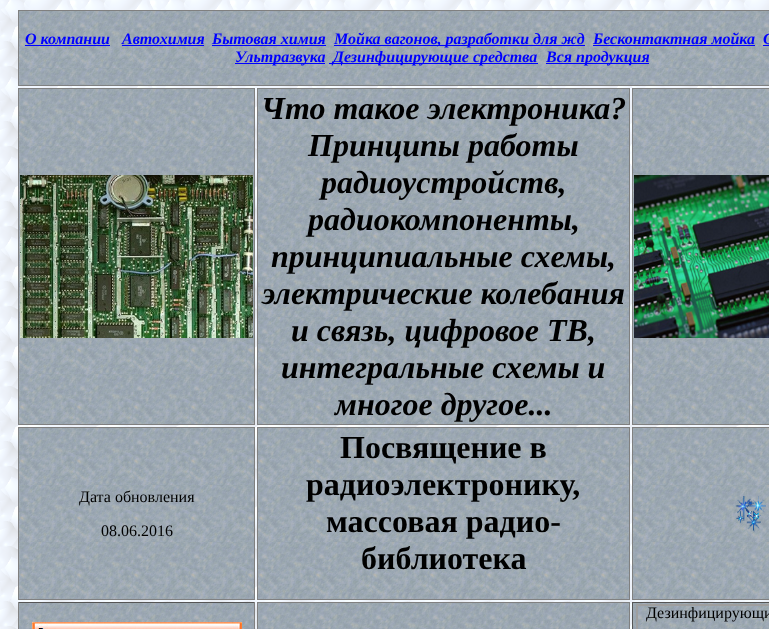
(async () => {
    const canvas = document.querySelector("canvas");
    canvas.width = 769;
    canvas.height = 629;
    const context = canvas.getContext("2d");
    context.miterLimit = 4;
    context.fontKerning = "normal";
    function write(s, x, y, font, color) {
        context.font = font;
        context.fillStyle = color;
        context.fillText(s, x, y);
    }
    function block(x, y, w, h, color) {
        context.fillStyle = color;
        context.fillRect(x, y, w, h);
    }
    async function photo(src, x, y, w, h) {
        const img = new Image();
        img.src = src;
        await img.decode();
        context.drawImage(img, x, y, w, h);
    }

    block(0, 0, 769, 629, "rgb(255, 255, 255)");
    await photo("media/1.png", 0, 0, 769, 629);
    await photo("media/2.png", 19, 11, 750, 74);
    context.strokeStyle = "rgb(128, 128, 128)";
    context.strokeRect(18.5, 10.5, 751, 75);
    write("О компании", 25, 44, "italic bold 16px Liberation Serif", "rgb(0, 0, 255)");
    block(25, 45, 85, 1, "rgb(0, 0, 255)");
    write("Автохимия", 122, 44, "italic bold 16px Liberation Serif", "rgb(0, 0, 255)");
    block(122, 45, 82, 1, "rgb(0, 0, 255)");
    write("Бытовая химия", 212, 44, "italic bold 16px Liberation Serif", "rgb(0, 0, 255)");
    block(212, 45, 114, 1, "rgb(0, 0, 255)");
    block(334, 45, 251, 1, "rgb(0, 0, 255)");
    write("Мойка вагонов, разработки для жд", 334, 44, "italic bold 16px Liberation Serif", "rgb(0, 0, 255)");
    write("Бесконтактная мойка", 593, 44, "italic bold 16px Liberation Serif", "rgb(0, 0, 255)");
    block(593, 45, 162, 1, "rgb(0, 0, 255)");
    write("С", 763, 44, "italic bold 16px Liberation Serif", "rgb(0, 0, 255)");
    block(763, 45, 6, 1, "rgb(0, 0, 255)");
    block(235, 63, 90, 1, "rgb(0, 0, 255)");
    write("Ультразвука", 235, 62, "italic bold 16px Liberation Serif", "rgb(0, 0, 255)");
    block(329, 63, 209, 1, "rgb(0, 0, 255)");
    write("Дезинфицирующие средства", 333, 62, "italic bold 16px Liberation Serif", "rgb(0, 0, 255)");
    block(546, 63, 103, 1, "rgb(0, 0, 255)");
    write("Вся продукция", 546, 62, "italic bold 16px Liberation Serif", "rgb(0, 0, 255)");
    await photo("media/3.png", 19, 89, 235, 335);
    context.strokeRect(18.5, 88.5, 236, 336);
    await photo("media/4.png", 20, 175, 233, 163);
    await photo("media/5.png", 258, 89, 371, 335);
    context.strokeRect(257.5, 88.5, 372, 336);
    write("Что такое электроника?", 261, 119, "italic bold 32px Liberation Serif", "rgb(0, 0, 0)");
    write("Принципы работы", 308, 156, "italic bold 32px Liberation Serif", "rgb(0, 0, 0)");
    write("радиоустройств,", 321, 193, "italic bold 32px Liberation Serif", "rgb(0, 0, 0)");
    write("радиокомпоненты,", 308, 230, "italic bold 32px Liberation Serif", "rgb(0, 0, 0)");
    write("принципиальные схемы,", 271, 267, "italic bold 32px Liberation Serif", "rgb(0, 0, 0)");
    write("электрические колебания", 262, 304, "italic bold 32px Liberation Serif", "rgb(0, 0, 0)");
    write("и связь, цифровое ТВ,", 291, 341, "italic bold 32px Liberation Serif", "rgb(0, 0, 0)");
    write("интегральные схемы и", 281, 378, "italic bold 32px Liberation Serif", "rgb(0, 0, 0)");
    write("многое другое...", 335, 415, "italic bold 32px Liberation Serif", "rgb(0, 0, 0)");
    await photo("media/6.png", 633, 89, 136, 335);
    context.strokeRect(632.5, 88.5, 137, 336);
    await photo("media/7.png", 634, 175, 135, 163);
    await photo("media/8.png", 19, 428, 235, 171);
    context.strokeRect(18.5, 427.5, 236, 172);
    write("Дата обновления", 79, 502, "16px Liberation Serif", "rgb(0, 0, 0)");
    write("08.06.2016", 101, 536, "16px Liberation Serif", "rgb(0, 0, 0)");
    await photo("media/9.png", 258, 428, 371, 171);
    context.strokeRect(257.5, 427.5, 372, 172);
    write("Посвящение в", 340, 458, "bold 32px Liberation Serif", "rgb(0, 0, 0)");
    write("радиоэлектронику,", 306, 495, "bold 32px Liberation Serif", "rgb(0, 0, 0)");
    write("массовая радио-", 326, 532, "bold 32px Liberation Serif", "rgb(0, 0, 0)");
    write("библиотека", 361, 569, "bold 32px Liberation Serif", "rgb(0, 0, 0)");
    await photo("media/10.png", 633, 428, 136, 171);
    context.strokeRect(632.5, 427.5, 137, 172);
    await photo("media/11.png", 735, 496, 31, 36);
    await photo("media/12.png", 19, 603, 235, 26);
    block(18, 602, 237, 1, "rgb(85, 85, 85)");
    block(254, 602, 1, 27, "rgb(128, 128, 128)");
    block(18, 602, 1, 27, "rgb(128, 128, 128)");
    await photo("media/13.png", 32, 622, 210, 7);
    await photo("media/14.png", 258, 603, 371, 26);
    context.strokeRect(257.5, 602.5, 372, 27);
    await photo("media/15.png", 633, 603, 136, 26);
    block(632, 602, 137, 1, "rgb(85, 85, 85)");
    block(632, 602, 1, 27, "rgb(85, 85, 85)");
    context.fillStyle = "rgb(159, 159, 159)";
    context.beginPath();
    context.moveTo(636, 604);
    context.lineTo(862, 604);
    context.lineTo(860, 606);
    context.lineTo(638, 606);
    context.closePath();
    context.fill();
    context.beginPath();
    context.moveTo(636, 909);
    context.lineTo(636, 604);
    context.lineTo(638, 606);
    context.lineTo(638, 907);
    context.closePath();
    context.fill();
    write("Дезинфицирующи", 646, 618, "16px Liberation Serif", "rgb(0, 0, 0)");
})();
